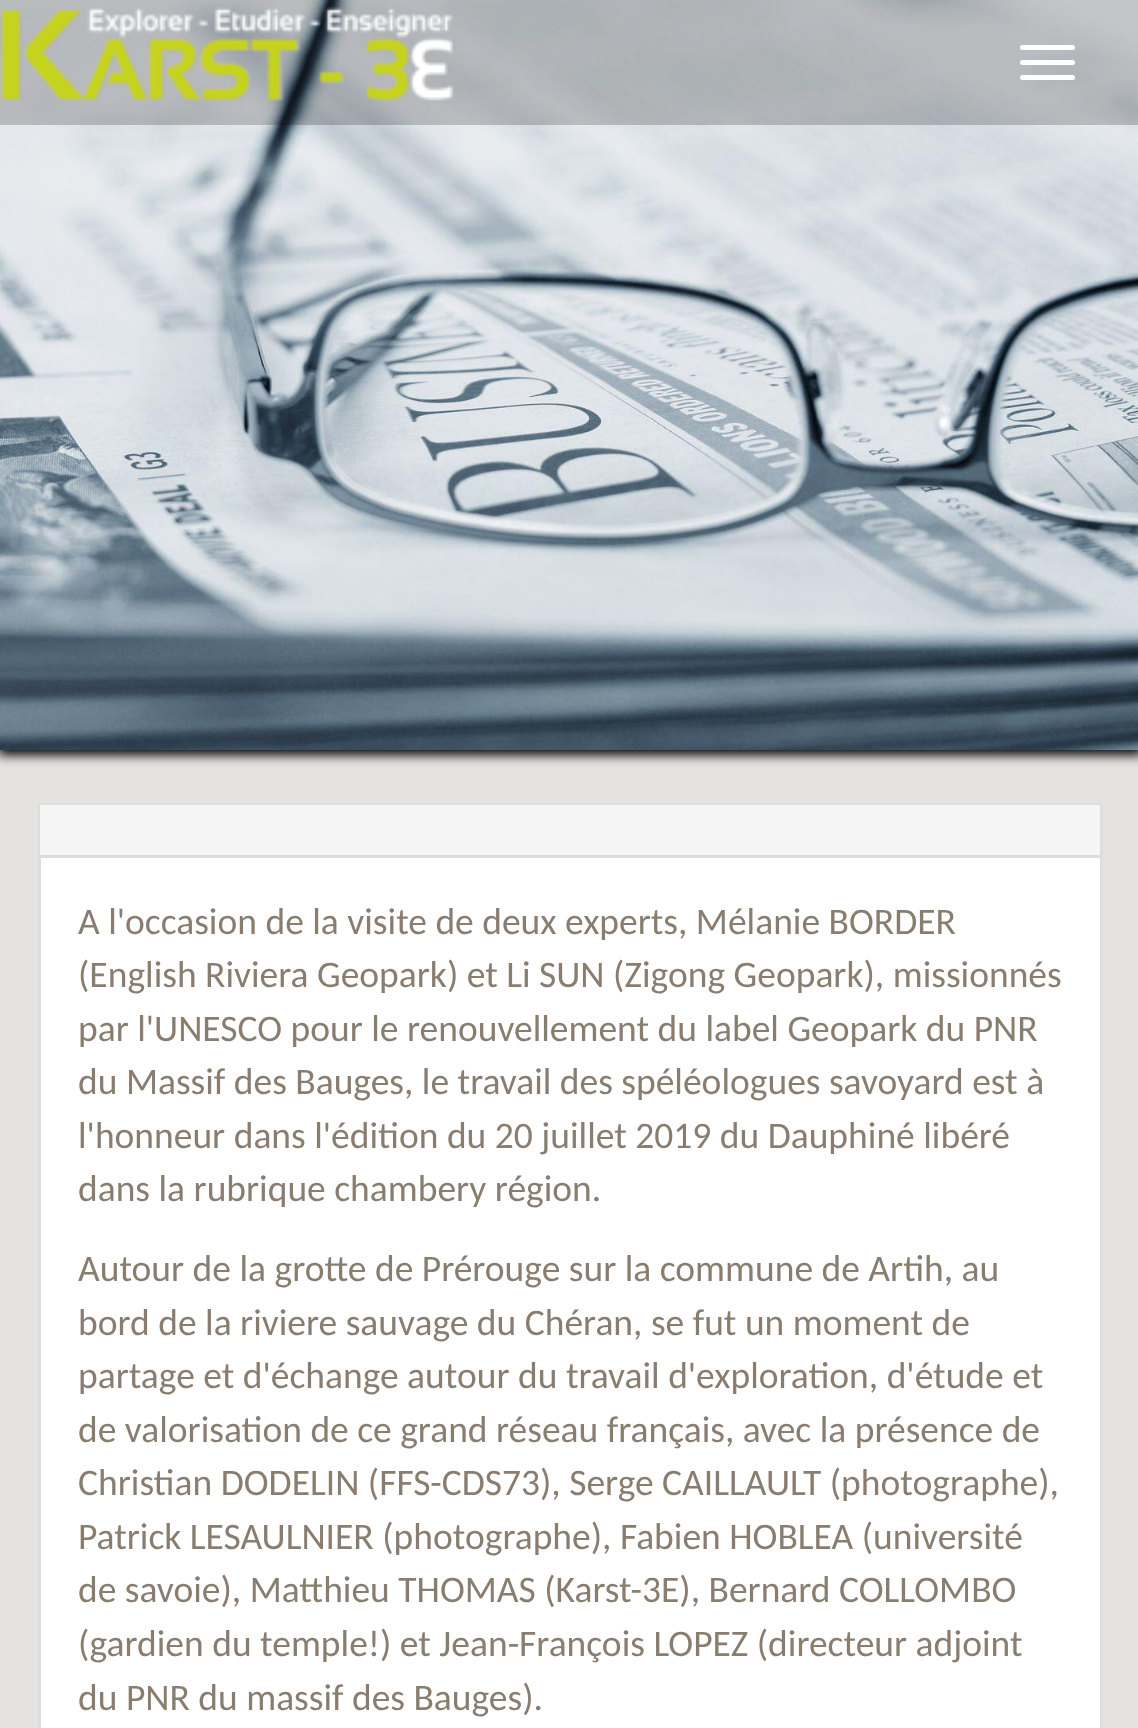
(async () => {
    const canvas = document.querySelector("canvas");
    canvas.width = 1138;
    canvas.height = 1728;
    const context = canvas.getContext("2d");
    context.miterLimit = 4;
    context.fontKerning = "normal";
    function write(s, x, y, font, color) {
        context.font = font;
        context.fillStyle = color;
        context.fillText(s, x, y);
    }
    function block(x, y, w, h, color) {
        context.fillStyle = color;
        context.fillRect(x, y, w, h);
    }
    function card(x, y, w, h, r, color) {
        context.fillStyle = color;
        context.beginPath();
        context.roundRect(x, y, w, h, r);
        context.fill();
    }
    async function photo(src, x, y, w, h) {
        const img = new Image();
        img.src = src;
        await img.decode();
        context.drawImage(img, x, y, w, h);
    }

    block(0, 0, 1138, 1728, "rgb(229, 227, 224)");
    context.fillStyle = "rgb(0, 0, 0)";
    context.filter = "blur(6px)";
    context.beginPath();
    context.rect(-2, 0, 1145, 755);
    context.fill();
    context.filter = "none";
    await photo("media/1.png", 0, 0, 1138, 750);
    block(0, 0, 1138, 125, "rgba(0, 0, 0, 0.2)");
    await photo("media/2.png", 0, 7, 455, 95);
    card(1020, 45, 55, 5, 2.5, "rgb(255, 255, 255)");
    card(1020, 60, 55, 5, 2.5, "rgb(255, 255, 255)");
    card(1020, 75, 55, 5, 2.5, "rgb(255, 255, 255)");
    block(41, 858, 1059, 870, "rgb(255, 255, 255)");
    context.strokeStyle = "rgb(221, 221, 221)";
    context.lineWidth = 3;
    context.strokeRect(39.5, 804.5, 1062, 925);
    block(40, 805, 1060, 50, "rgb(245, 245, 245)");
    block(40, 855, 1060, 3, "rgb(221, 221, 221)");
    write("A l'occasion de la visite de deux experts, Mélanie BORDER", 78, 934, "37.5px Carlito", "rgb(137, 125, 112)");
    write("(English Riviera Geopark) et Li SUN (Zigong Geopark), missionnés", 78, 987, "37.5px Carlito", "rgb(137, 125, 112)");
    write("par l'UNESCO pour le renouvellement du label Geopark du PNR", 78, 1041, "37.5px Carlito", "rgb(137, 125, 112)");
    write("du Massif des Bauges, le travail des spéléologues savoyard est à", 78, 1094, "37.5px Carlito", "rgb(137, 125, 112)");
    write("l'honneur dans l'édition du 20 juillet 2019 du Dauphiné libéré", 78, 1148, "37.5px Carlito", "rgb(137, 125, 112)");
    write("dans la rubrique chambery région.", 78, 1201, "37.5px Carlito", "rgb(137, 125, 112)");
    write("Autour de la grotte de Prérouge sur la commune de Artih, au", 78, 1281, "37.5px Carlito", "rgb(137, 125, 112)");
    write("bord de la riviere sauvage du Chéran, se fut un moment de", 78, 1335, "37.5px Carlito", "rgb(137, 125, 112)");
    write("partage et d'échange autour du travail d'exploration, d'étude et", 78, 1388, "37.5px Carlito", "rgb(137, 125, 112)");
    write("de valorisation de ce grand réseau français, avec la présence de", 78, 1442, "37.5px Carlito", "rgb(137, 125, 112)");
    write("Christian DODELIN (FFS-CDS73), Serge CAILLAULT (photographe),", 78, 1495, "37.5px Carlito", "rgb(137, 125, 112)");
    write("Patrick LESAULNIER (photographe), Fabien HOBLEA (université", 78, 1549, "37.5px Carlito", "rgb(137, 125, 112)");
    write("de savoie), Matthieu THOMAS (Karst-3E), Bernard COLLOMBO", 78, 1602, "37.5px Carlito", "rgb(137, 125, 112)");
    write("(gardien du temple!) et Jean-François LOPEZ (directeur adjoint", 78, 1656, "37.5px Carlito", "rgb(137, 125, 112)");
    write("du PNR du massif des Bauges).", 78, 1710, "37.5px Carlito", "rgb(137, 125, 112)");
})();
